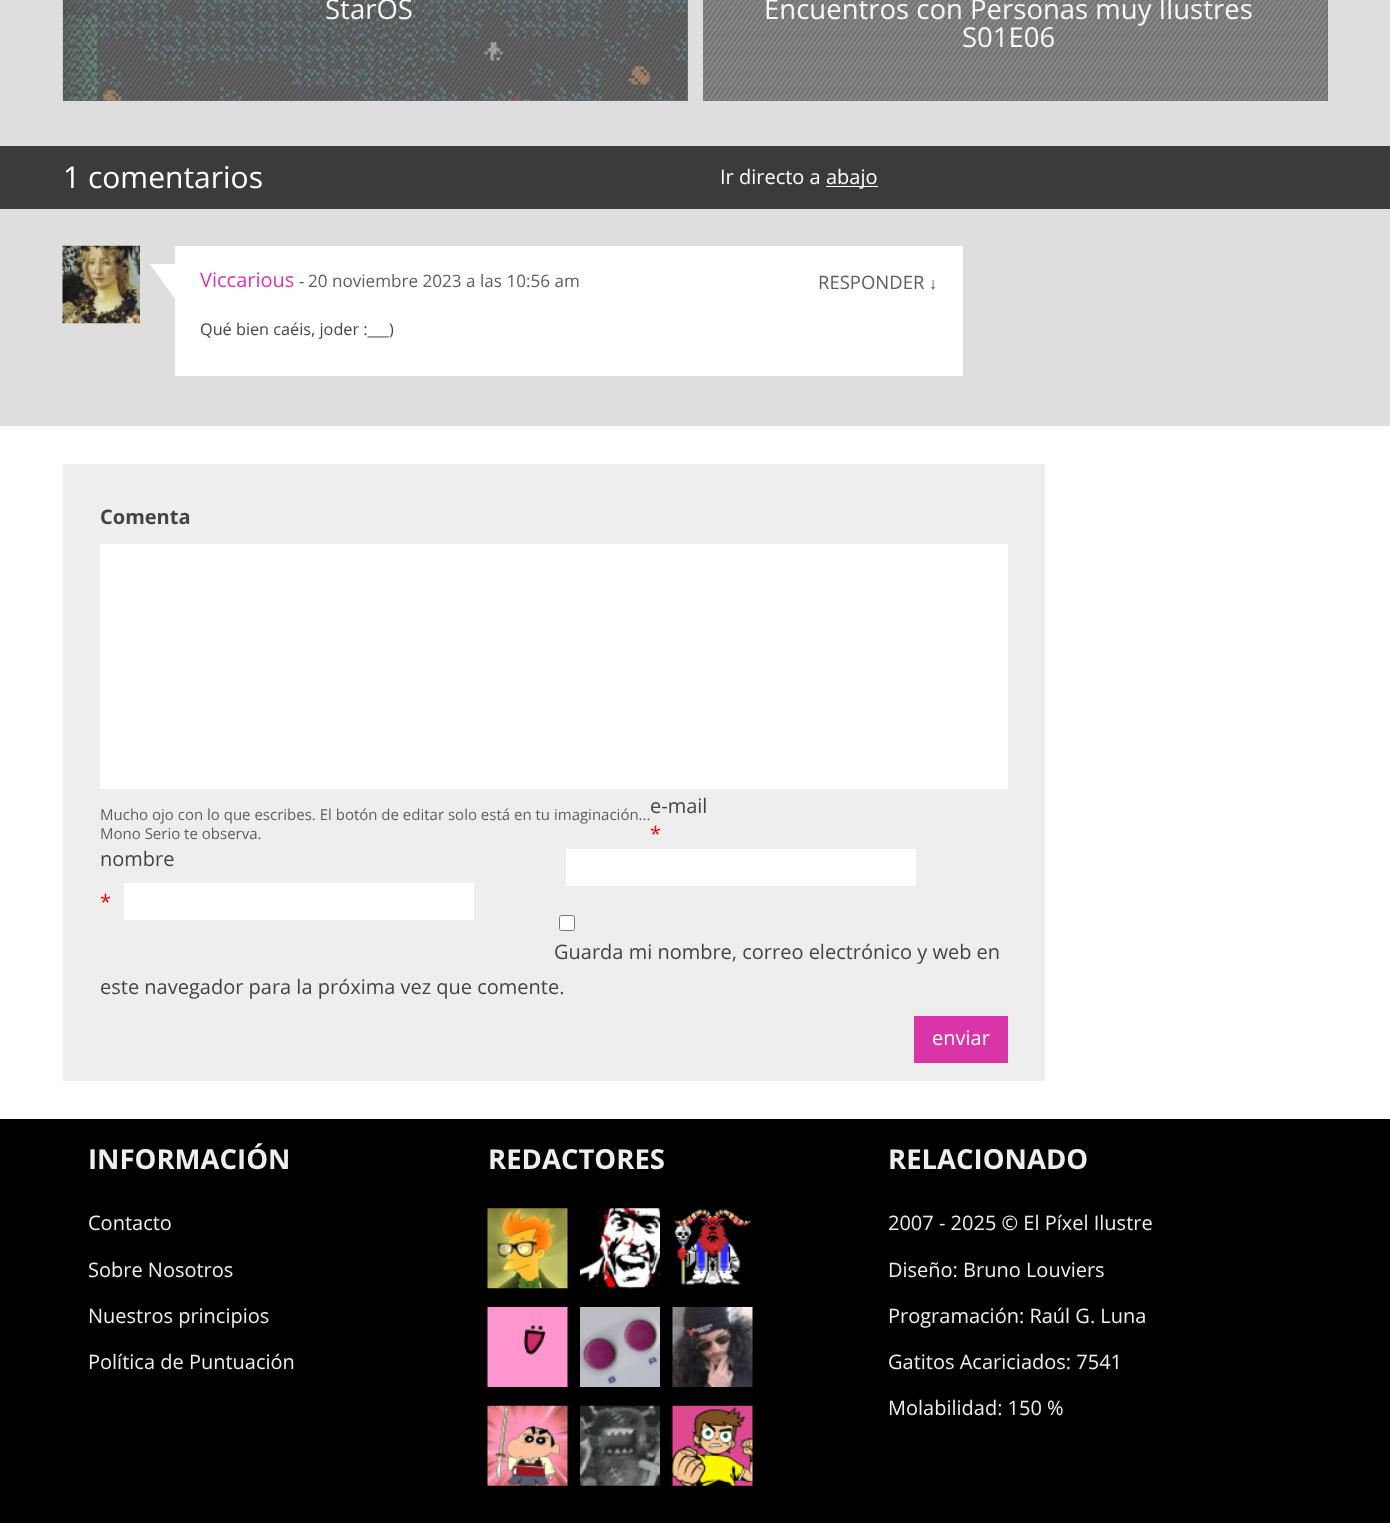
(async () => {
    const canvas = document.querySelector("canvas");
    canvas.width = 1390;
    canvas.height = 1523;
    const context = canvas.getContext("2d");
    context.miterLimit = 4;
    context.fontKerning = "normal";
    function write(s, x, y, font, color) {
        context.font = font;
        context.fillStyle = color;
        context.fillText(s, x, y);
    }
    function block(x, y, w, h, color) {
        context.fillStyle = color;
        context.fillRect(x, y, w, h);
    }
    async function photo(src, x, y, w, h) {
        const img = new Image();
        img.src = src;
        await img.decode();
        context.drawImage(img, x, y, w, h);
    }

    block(0, 0, 1390, 1523, "rgb(222, 222, 222)");
    block(63, 0, 625, 101, "rgb(112, 112, 112)");
    await photo("media/1.png", 63, 0, 625, 101);
    await photo("media/2.png", 62, 0, 626, 101);
    write("StarOS", 325, 19, "27.5px Open Sans", "rgb(248, 248, 248)");
    block(703, 0, 625, 101, "rgb(112, 112, 112)");
    await photo("media/1.png", 703, 0, 625, 101);
    write("Encuentros con Personas muy Ilustres", 764, 19, "27.5px Open Sans", "rgb(248, 248, 248)");
    write("S01E06", 962, 47, "27.5px Open Sans", "rgb(248, 248, 248)");
    block(0, 146, 1390, 63, "rgb(59, 59, 59)");
    write("1 comentarios", 63, 188, "30px Open Sans", "rgb(255, 255, 255)");
    write("Ir directo a", 720, 184, "20px Open Sans", "rgb(255, 255, 255)");
    block(826, 186, 52, 1, "rgb(255, 255, 255)");
    write("abajo", 826, 184, "20px Open Sans", "rgb(255, 255, 255)");
    await photo("media/3.png", 62, 245, 78, 79);
    context.beginPath();
    context.moveTo(150, 264);
    context.lineTo(175, 264);
    context.lineTo(175, 299);
    context.closePath();
    context.fill();
    block(175, 246, 788, 130, "rgb(255, 255, 255)");
    write("Viccarious", 200, 287, "20px Open Sans", "rgb(218, 53, 170)");
    write("-", 299, 287, "16.25px Open Sans", "rgb(68, 68, 68)");
    write("20 noviembre 2023 a las 10:56 am", 308, 287, "17.1px Open Sans", "rgb(94, 94, 94)");
    write("RESPONDER", 818, 289, "18.5px Open Sans", "rgb(94, 94, 94)");
    write("↓", 929, 289, "16.25px Liberation Sans", "rgb(68, 68, 68)");
    write("Qué bien caéis, joder :___)", 200, 335, "16.25px Open Sans", "rgb(68, 68, 68)");
    block(0, 426, 1390, 693, "rgb(255, 255, 255)");
    block(63, 464, 982, 617, "rgb(238, 238, 238)");
    write("Comenta", 100, 524, "bold 20px Open Sans", "rgb(68, 68, 68)");
    block(100, 544, 908, 245, "rgb(255, 255, 255)");
    write("Mucho ojo con lo que escribes. El botón de editar solo está en tu imaginación...", 100, 820, "15px Open Sans", "rgb(94, 94, 94)");
    write("Mono Serio te observa.", 100, 839, "15px Open Sans", "rgb(94, 94, 94)");
    write("e-mail", 650, 813, "20px Open Sans", "rgb(68, 68, 68)");
    write("*", 650, 841, "20px Open Sans", "rgb(255, 0, 0)");
    block(566, 849, 350, 37, "rgb(255, 255, 255)");
    write("nombre", 100, 866, "20px Open Sans", "rgb(68, 68, 68)");
    write("*", 100, 909, "20px Open Sans", "rgb(255, 0, 0)");
    block(124, 883, 350, 37, "rgb(255, 255, 255)");
    context.beginPath();
    context.roundRect(559.5, 915.5, 15, 15, 2);
    context.fill();
    context.strokeStyle = "rgb(118, 118, 118)";
    context.stroke();
    write("Guarda mi nombre, correo electrónico y web en", 554, 959, "20px Open Sans", "rgb(68, 68, 68)");
    write("este navegador para la próxima vez que comente.", 100, 994, "20px Open Sans", "rgb(68, 68, 68)");
    block(914, 1016, 94, 47, "rgb(217, 53, 169)");
    write("enviar", 932, 1045, "20px Open Sans", "rgb(255, 255, 255)");
    block(0, 1119, 1390, 404, "rgb(0, 0, 0)");
    write("INFORMACIÓN", 88, 1169, "bold 27.5px Open Sans", "rgb(238, 238, 238)");
    write("Contacto", 88, 1230, "20px Open Sans", "rgb(238, 238, 238)");
    write("Sobre Nosotros", 88, 1277, "20px Open Sans", "rgb(238, 238, 238)");
    write("Nuestros principios", 88, 1323, "20px Open Sans", "rgb(238, 238, 238)");
    write("Política de Puntuación", 88, 1369, "20px Open Sans", "rgb(238, 238, 238)");
    write("REDACTORES", 488, 1169, "bold 27.5px Open Sans", "rgb(238, 238, 238)");
    await photo("media/4.png", 487, 1208, 81, 81);
    await photo("media/5.png", 580, 1208, 80, 81);
    await photo("media/6.png", 674, 1209, 78, 76);
    await photo("media/7.png", 487, 1307, 81, 80);
    await photo("media/8.png", 580, 1307, 80, 80);
    await photo("media/9.png", 672, 1307, 81, 80);
    await photo("media/10.png", 487, 1405, 81, 81);
    await photo("media/11.png", 580, 1405, 80, 81);
    await photo("media/12.png", 672, 1405, 81, 81);
    write("RELACIONADO", 888, 1169, "bold 27.5px Open Sans", "rgb(238, 238, 238)");
    write("2007 - 2025 © El Píxel Ilustre", 888, 1230, "20px Open Sans", "rgb(238, 238, 238)");
    write("Diseño: Bruno Louviers", 888, 1277, "20px Open Sans", "rgb(238, 238, 238)");
    write("Programación: Raúl G. Luna", 888, 1323, "20px Open Sans", "rgb(238, 238, 238)");
    write("Gatitos Acariciados: 7541", 888, 1369, "20px Open Sans", "rgb(238, 238, 238)");
    write("Molabilidad: 150 %", 888, 1415, "20px Open Sans", "rgb(238, 238, 238)");
})();
